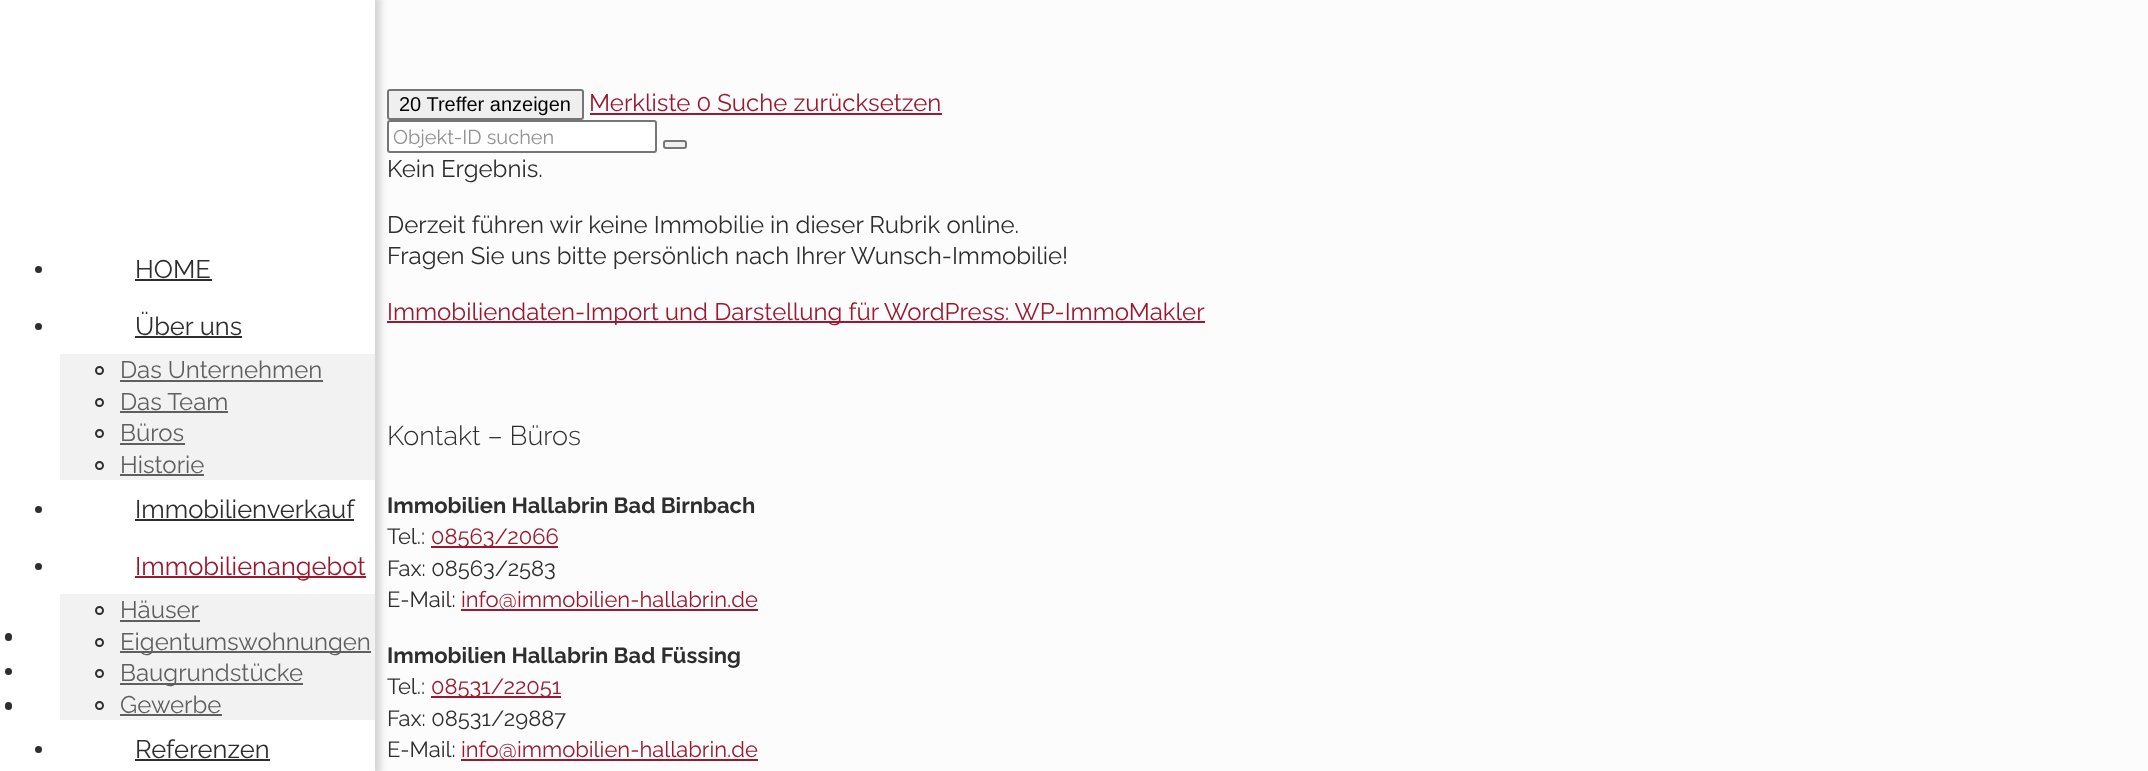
(async () => {
    const canvas = document.querySelector("canvas");
    canvas.width = 2148;
    canvas.height = 771;
    const context = canvas.getContext("2d");
    context.miterLimit = 4;
    context.fontKerning = "normal";
    function write(s, x, y, font, color) {
        context.font = font;
        context.fillStyle = color;
        context.fillText(s, x, y);
    }
    function block(x, y, w, h, color) {
        context.fillStyle = color;
        context.fillRect(x, y, w, h);
    }
    function card(x, y, w, h, r, color) {
        context.fillStyle = color;
        context.beginPath();
        context.roundRect(x, y, w, h, r);
        context.fill();
    }

    block(0, 0, 2148, 771, "rgb(252, 252, 252)");
    context.fillStyle = "rgb(239, 239, 239)";
    context.beginPath();
    context.roundRect(388, 90, 195, 29, 2);
    context.fill();
    context.strokeStyle = "rgb(118, 118, 118)";
    context.lineWidth = 2;
    context.stroke();
    context.fillStyle = "rgb(255, 255, 255)";
    context.beginPath();
    context.roundRect(388, 121, 268, 31, 2);
    context.fill();
    context.stroke();
    block(387, 321, 818, 2, "rgb(155, 24, 47)");
    context.fillStyle = "rgba(0, 0, 0, 0.15)";
    context.filter = "blur(3px)";
    context.beginPath();
    context.rect(0, -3, 381, 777);
    context.fill();
    context.filter = "none";
    block(0, 0, 375, 771, "rgb(255, 255, 255)");
    card(5, 633, 7, 8, 3.5, "rgb(46, 46, 46)");
    context.beginPath();
    context.arc(8.5, 671.5, 3.5, 0, Math.PI * 2);
    context.fill();
    card(5, 702, 7, 8, 3.5, "rgb(46, 46, 46)");
    context.beginPath();
    context.arc(38.5, 269.5, 3.5, 0, Math.PI * 2);
    context.fill();
    write("HOME", 135, 278, "25.5px Raleway", "rgb(46, 46, 46)");
    block(135, 279, 77, 2, "rgb(46, 46, 46)");
    context.beginPath();
    context.arc(38.5, 326.5, 3.5, 0, Math.PI * 2);
    context.fill();
    write("Über uns", 135, 335, "25.5px Raleway", "rgb(46, 46, 46)");
    block(135, 336, 107, 2, "rgb(46, 46, 46)");
    block(60, 354, 315, 126, "rgb(242, 242, 242)");
    context.beginPath();
    context.arc(99.5, 370.5, 3.5, 0, Math.PI * 2);
    context.strokeStyle = "rgb(46, 46, 46)";
    context.stroke();
    write("Das Unternehmen", 120, 378, "24px Raleway", "rgb(95, 95, 95)");
    block(120, 380, 203, 2, "rgb(95, 95, 95)");
    context.beginPath();
    context.arc(99.5, 402.5, 3.5, 0, Math.PI * 2);
    context.stroke();
    write("Das Team", 120, 410, "24px Raleway", "rgb(95, 95, 95)");
    block(120, 411, 108, 2, "rgb(95, 95, 95)");
    context.beginPath();
    context.arc(99.5, 433.5, 3.5, 0, Math.PI * 2);
    context.stroke();
    write("Büros", 120, 441, "24px Raleway", "rgb(95, 95, 95)");
    block(120, 443, 65, 2, "rgb(95, 95, 95)");
    context.beginPath();
    context.arc(99.5, 465.5, 3.5, 0, Math.PI * 2);
    context.stroke();
    write("Historie", 120, 473, "24px Raleway", "rgb(95, 95, 95)");
    block(120, 474, 84, 2, "rgb(95, 95, 95)");
    context.fillStyle = "rgb(46, 46, 46)";
    context.beginPath();
    context.arc(38.5, 509.5, 3.5, 0, Math.PI * 2);
    context.fill();
    write("Immobilienverkauf", 135, 518, "25.5px Raleway", "rgb(46, 46, 46)");
    block(135, 519, 219, 2, "rgb(46, 46, 46)");
    context.beginPath();
    context.arc(38.5, 566.5, 3.5, 0, Math.PI * 2);
    context.fill();
    block(135, 576, 231, 2, "rgb(155, 24, 47)");
    write("Immobilienangebot", 135, 575, "25.5px Raleway", "rgb(155, 24, 47)");
    block(60, 594, 315, 126, "rgb(242, 242, 242)");
    context.beginPath();
    context.arc(99.5, 610.5, 3.5, 0, Math.PI * 2);
    context.stroke();
    write("Häuser", 120, 618, "24px Raleway", "rgb(95, 95, 95)");
    block(120, 620, 80, 2, "rgb(95, 95, 95)");
    context.beginPath();
    context.arc(99.5, 642.5, 3.5, 0, Math.PI * 2);
    context.stroke();
    block(120, 651, 251, 2, "rgb(95, 95, 95)");
    write("Eigentumswohnungen", 120, 650, "24px Raleway", "rgb(95, 95, 95)");
    context.beginPath();
    context.arc(99.5, 673.5, 3.5, 0, Math.PI * 2);
    context.stroke();
    block(120, 683, 183, 2, "rgb(95, 95, 95)");
    write("Baugrundstücke", 120, 681, "24px Raleway", "rgb(95, 95, 95)");
    context.beginPath();
    context.arc(99.5, 705.5, 3.5, 0, Math.PI * 2);
    context.stroke();
    write("Gewerbe", 120, 713, "24px Raleway", "rgb(95, 95, 95)");
    block(120, 714, 102, 2, "rgb(95, 95, 95)");
    context.fillStyle = "rgb(46, 46, 46)";
    context.beginPath();
    context.arc(38.5, 749.5, 3.5, 0, Math.PI * 2);
    context.fill();
    write("Referenzen", 135, 758, "25.5px Raleway", "rgb(46, 46, 46)");
    block(135, 759, 135, 2, "rgb(46, 46, 46)");
    write("20 Treffer anzeigen", 399, 111, "20px Liberation Sans", "rgb(0, 0, 0)");
    write("Merkliste 0 Suche zurücksetzen", 589, 111, "24px Raleway", "rgb(155, 24, 47)");
    block(590, 113, 352, 2, "rgb(155, 24, 47)");
    write("Objekt-ID suchen", 393, 144, "20px Raleway", "rgb(146, 146, 146)");
    context.fillStyle = "rgb(239, 239, 239)";
    context.beginPath();
    context.roundRect(664, 141, 22, 7, 2);
    context.fill();
    context.strokeStyle = "rgb(118, 118, 118)";
    context.stroke();
    write("Kein Ergebnis.", 387, 177, "24px Raleway", "rgb(46, 46, 46)");
    write("Derzeit führen wir keine Immobilie in dieser Rubrik online.", 387, 233, "24px Raleway", "rgb(46, 46, 46)");
    write("Fragen Sie uns bitte persönlich nach Ihrer Wunsch-Immobilie!", 387, 264, "24px Raleway", "rgb(46, 46, 46)");
    write("Immobiliendaten-Import und Darstellung für WordPress: WP-ImmoMakler", 387, 320, "24px Raleway", "rgb(155, 24, 47)");
    write("Kontakt – Büros", 387, 445, "300 27px Raleway", "rgb(46, 46, 46)");
    write("Immobilien Hallabrin Bad Birnbach", 387, 513, "bold 22px Raleway", "rgb(46, 46, 46)");
    write("Tel.:", 387, 544, "22px Raleway", "rgb(46, 46, 46)");
    block(431, 546, 127, 2, "rgb(155, 24, 47)");
    write("08563/2066", 431, 544, "22px Raleway", "rgb(155, 24, 47)");
    write("Fax: 08563/2583", 387, 576, "22px Raleway", "rgb(46, 46, 46)");
    write("E-Mail:", 387, 607, "22px Raleway", "rgb(46, 46, 46)");
    block(461, 609, 297, 2, "rgb(155, 24, 47)");
    write("info@immobilien-hallabrin.de", 461, 607, "22px Raleway", "rgb(155, 24, 47)");
    write("Immobilien Hallabrin Bad Füssing", 387, 663, "bold 22px Raleway", "rgb(46, 46, 46)");
    write("Tel.:", 387, 694, "22px Raleway", "rgb(46, 46, 46)");
    block(431, 696, 130, 2, "rgb(155, 24, 47)");
    write("08531/22051", 431, 694, "22px Raleway", "rgb(155, 24, 47)");
    write("Fax: 08531/29887", 387, 726, "22px Raleway", "rgb(46, 46, 46)");
    write("E-Mail:", 387, 757, "22px Raleway", "rgb(46, 46, 46)");
    block(461, 759, 297, 2, "rgb(155, 24, 47)");
    write("info@immobilien-hallabrin.de", 461, 757, "22px Raleway", "rgb(155, 24, 47)");
})();
